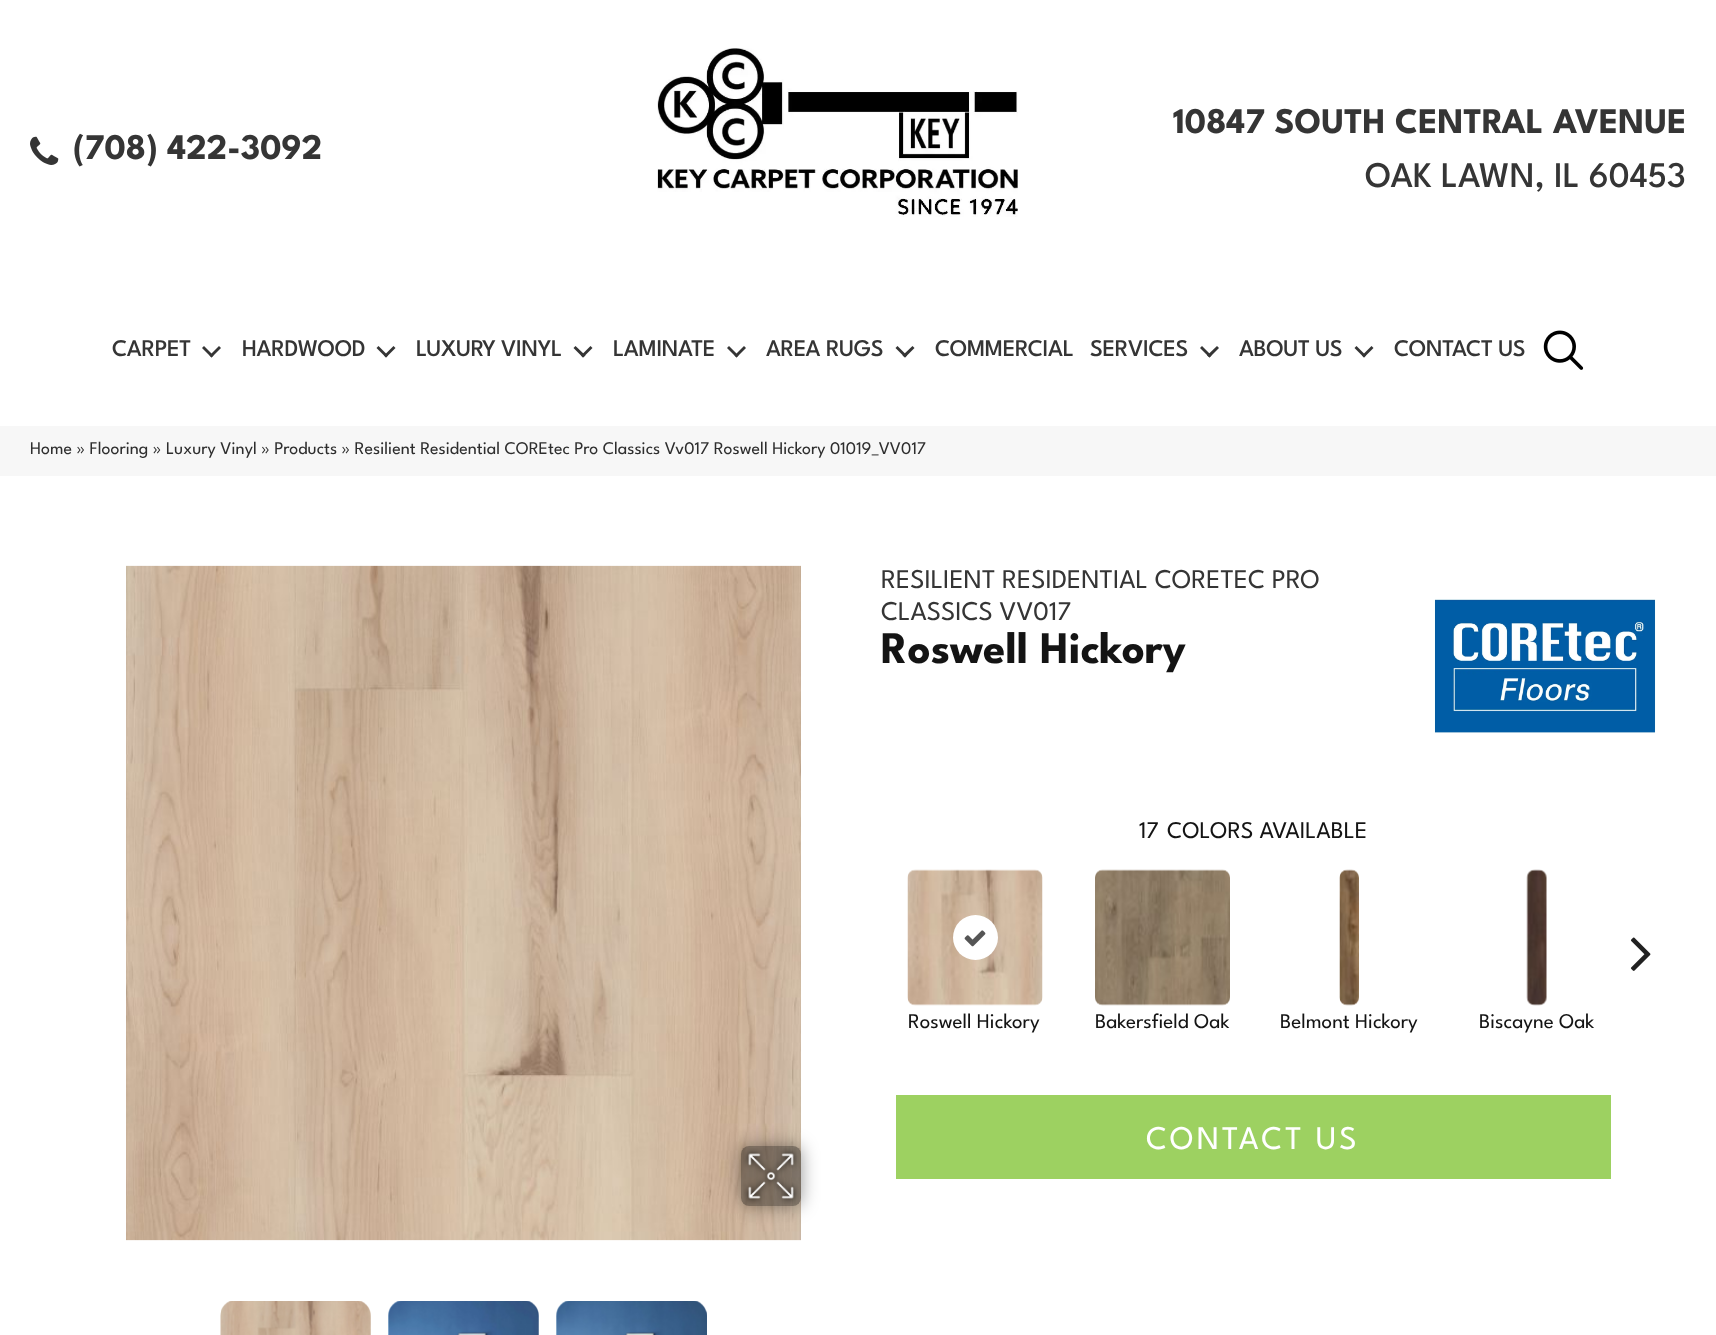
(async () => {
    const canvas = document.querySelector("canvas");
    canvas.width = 1716;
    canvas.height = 1335;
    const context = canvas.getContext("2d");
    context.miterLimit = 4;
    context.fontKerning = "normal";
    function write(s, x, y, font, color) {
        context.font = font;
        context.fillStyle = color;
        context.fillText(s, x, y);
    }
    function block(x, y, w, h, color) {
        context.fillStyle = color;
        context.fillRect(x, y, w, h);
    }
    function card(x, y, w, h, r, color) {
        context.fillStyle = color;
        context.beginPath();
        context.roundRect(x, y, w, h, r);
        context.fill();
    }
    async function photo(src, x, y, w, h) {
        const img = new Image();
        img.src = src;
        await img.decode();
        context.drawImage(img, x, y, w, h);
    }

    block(0, 0, 1716, 1335, "rgb(255, 255, 255)");
    await photo("media/1.png", 30, 136, 29, 29);
    write("(708) 422-3092", 73, 159, "bold 36px League Spartan", "rgb(53, 53, 53)");
    await photo("media/2.png", 657, 48, 361, 169);
    write("10847 SOUTH CENTRAL AVENUE", 1173, 133, "bold 36px League Spartan", "rgb(53, 53, 53)");
    write("OAK LAWN, IL 60453", 1365, 187, "500 36px League Spartan", "rgb(53, 53, 53)");
    context.letterSpacing = "-0.4px";
    write("CARPET", 112, 356, "500 24px League Spartan", "rgb(53, 53, 53)");
    context.beginPath();
    context.moveTo(219, 346);
    context.lineTo(221, 348);
    context.lineTo(211.5, 357.5);
    context.lineTo(209.5, 355.5);
    context.closePath();
    context.fill();
    context.beginPath();
    context.moveTo(204, 346);
    context.lineTo(213.5, 355.5);
    context.lineTo(211.5, 357.5);
    context.lineTo(202, 348);
    context.closePath();
    context.fill();
    write("HARDWOOD", 242, 356, "500 24px League Spartan", "rgb(53, 53, 53)");
    context.beginPath();
    context.moveTo(393.5, 346);
    context.lineTo(395.5, 348);
    context.lineTo(386, 357.5);
    context.lineTo(384, 355.5);
    context.closePath();
    context.fill();
    context.beginPath();
    context.moveTo(378.5, 346);
    context.lineTo(388, 355.5);
    context.lineTo(386, 357.5);
    context.lineTo(376.5, 348);
    context.closePath();
    context.fill();
    write("LUXURY VINYL", 416, 356, "500 24px League Spartan", "rgb(53, 53, 53)");
    context.beginPath();
    context.moveTo(590.5, 346);
    context.lineTo(592.5, 348);
    context.lineTo(583, 357.5);
    context.lineTo(581, 355.5);
    context.closePath();
    context.fill();
    context.beginPath();
    context.moveTo(575.5, 346);
    context.lineTo(585.5, 355.5);
    context.lineTo(583, 357.5);
    context.lineTo(573.5, 348);
    context.closePath();
    context.fill();
    write("LAMINATE", 613, 356, "500 24px League Spartan", "rgb(53, 53, 53)");
    context.beginPath();
    context.moveTo(744, 346);
    context.lineTo(746, 348);
    context.lineTo(736.5, 357.5);
    context.lineTo(734.5, 355.5);
    context.closePath();
    context.fill();
    context.beginPath();
    context.moveTo(729, 346);
    context.lineTo(738.5, 355.5);
    context.lineTo(736.5, 357.5);
    context.lineTo(727, 348);
    context.closePath();
    context.fill();
    write("AREA RUGS", 766, 356, "500 24px League Spartan", "rgb(53, 53, 53)");
    context.beginPath();
    context.moveTo(912.5, 346);
    context.lineTo(914.5, 348);
    context.lineTo(905, 357.5);
    context.lineTo(902.5, 355.5);
    context.closePath();
    context.fill();
    context.beginPath();
    context.moveTo(897.5, 346);
    context.lineTo(907, 355.5);
    context.lineTo(905, 357.5);
    context.lineTo(895.5, 348);
    context.closePath();
    context.fill();
    write("COMMERCIAL", 935, 356, "500 24px League Spartan", "rgb(53, 53, 53)");
    write("SERVICES", 1090, 356, "500 24px League Spartan", "rgb(53, 53, 53)");
    context.beginPath();
    context.moveTo(1217, 346);
    context.lineTo(1219, 348);
    context.lineTo(1209.5, 357.5);
    context.lineTo(1207, 355.5);
    context.closePath();
    context.fill();
    context.beginPath();
    context.moveTo(1202, 346);
    context.lineTo(1211.5, 355.5);
    context.lineTo(1209.5, 357.5);
    context.lineTo(1200, 348);
    context.closePath();
    context.fill();
    write("ABOUT US", 1239, 356, "500 24px League Spartan", "rgb(53, 53, 53)");
    context.beginPath();
    context.moveTo(1371.5, 346);
    context.lineTo(1373.5, 348);
    context.lineTo(1364, 357.5);
    context.lineTo(1362, 355.5);
    context.closePath();
    context.fill();
    context.beginPath();
    context.moveTo(1356.5, 346);
    context.lineTo(1366, 355.5);
    context.lineTo(1364, 357.5);
    context.lineTo(1354.5, 348);
    context.closePath();
    context.fill();
    write("CONTACT US", 1394, 356, "500 24px League Spartan", "rgb(53, 53, 53)");
    await photo("media/3.png", 1543, 330, 41, 40);
    block(0, 426, 1716, 50, "rgb(247, 247, 247)");
    context.letterSpacing = "0px";
    write("Home » Flooring » Luxury Vinyl » Products » Resilient Residential COREtec Pro Classics Vv017 Roswell Hickory 01019_VV017", 30, 454, "17.85px League Spartan", "rgb(46, 46, 46)");
    await photo("media/4.png", 126, 565, 675, 676);
    context.save();
    context.beginPath();
    context.moveTo(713, 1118);
    context.lineTo(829, 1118);
    context.lineTo(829, 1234);
    context.lineTo(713, 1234);
    context.closePath();
    context.moveTo(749, 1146);
    context.lineTo(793, 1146);
    context.bezierCurveTo(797.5, 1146, 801, 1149.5, 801, 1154);
    context.lineTo(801, 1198);
    context.bezierCurveTo(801, 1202.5, 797.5, 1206, 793, 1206);
    context.lineTo(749, 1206);
    context.bezierCurveTo(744.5, 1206, 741, 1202.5, 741, 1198);
    context.lineTo(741, 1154);
    context.bezierCurveTo(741, 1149.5, 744.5, 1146, 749, 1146);
    context.closePath();
    context.clip("evenodd");
    context.fillStyle = "rgba(0, 0, 0, 0.41)";
    context.filter = "blur(9px)";
    context.beginPath();
    context.roundRect(741, 1146, 60, 60, 8);
    context.fill();
    context.filter = "none";
    context.restore();
    card(741, 1146, 60, 60, 8, "rgba(0, 0, 0, 0.4)");
    await photo("media/5.png", 743, 1148, 56, 56);
    await photo("media/6.png", 220, 1301, 151, 34);
    await photo("media/7.png", 221, 1301, 150, 34);
    await photo("media/8.png", 388, 1301, 151, 34);
    await photo("media/9.png", 388, 1301, 151, 34);
    await photo("media/10.png", 556, 1301, 151, 34);
    await photo("media/11.png", 556, 1301, 151, 34);
    write("RESILIENT RESIDENTIAL CORETEC PRO", 881, 588, "27px League Spartan", "rgb(53, 53, 53)");
    write("CLASSICS VV017", 881, 620, "27px League Spartan", "rgb(53, 53, 53)");
    write("Roswell Hickory", 881, 663, "bold 45px League Spartan", "rgb(20, 20, 20)");
    await photo("media/12.png", 1434, 599, 222, 134);
    write("17", 1139, 838, "24px League Spartan", "rgb(20, 20, 20)");
    write("COLORS AVAILABLE", 1167, 838, "24px League Spartan", "rgb(20, 20, 20)");
    await photo("media/13.png", 1630, 937, 21, 34);
    await photo("media/14.png", 907, 869, 136, 137);
    context.fillStyle = "rgb(255, 255, 255)";
    context.beginPath();
    context.arc(975.5, 937.5, 22.5, 0, Math.PI * 2);
    context.fill();
    await photo("media/15.png", 964, 930, 22, 17);
    write("Roswell Hickory", 908, 1028, "21px League Spartan", "rgb(20, 20, 20)");
    await photo("media/16.png", 1095, 869, 135, 137);
    write("Bakersfield Oak", 1095, 1028, "21px League Spartan", "rgb(20, 20, 20)");
    await photo("media/17.png", 1339, 869, 20, 137);
    write("Belmont Hickory", 1280, 1028, "21px League Spartan", "rgb(20, 20, 20)");
    await photo("media/18.png", 1526, 869, 21, 137);
    write("Biscayne Oak", 1479, 1028, "21px League Spartan", "rgb(20, 20, 20)");
    block(896, 1095, 715, 84, "rgb(157, 209, 97)");
    context.letterSpacing = "3px";
    write("CONTACT US", 1146, 1149, "33px League Spartan", "rgb(255, 255, 255)");
})();
